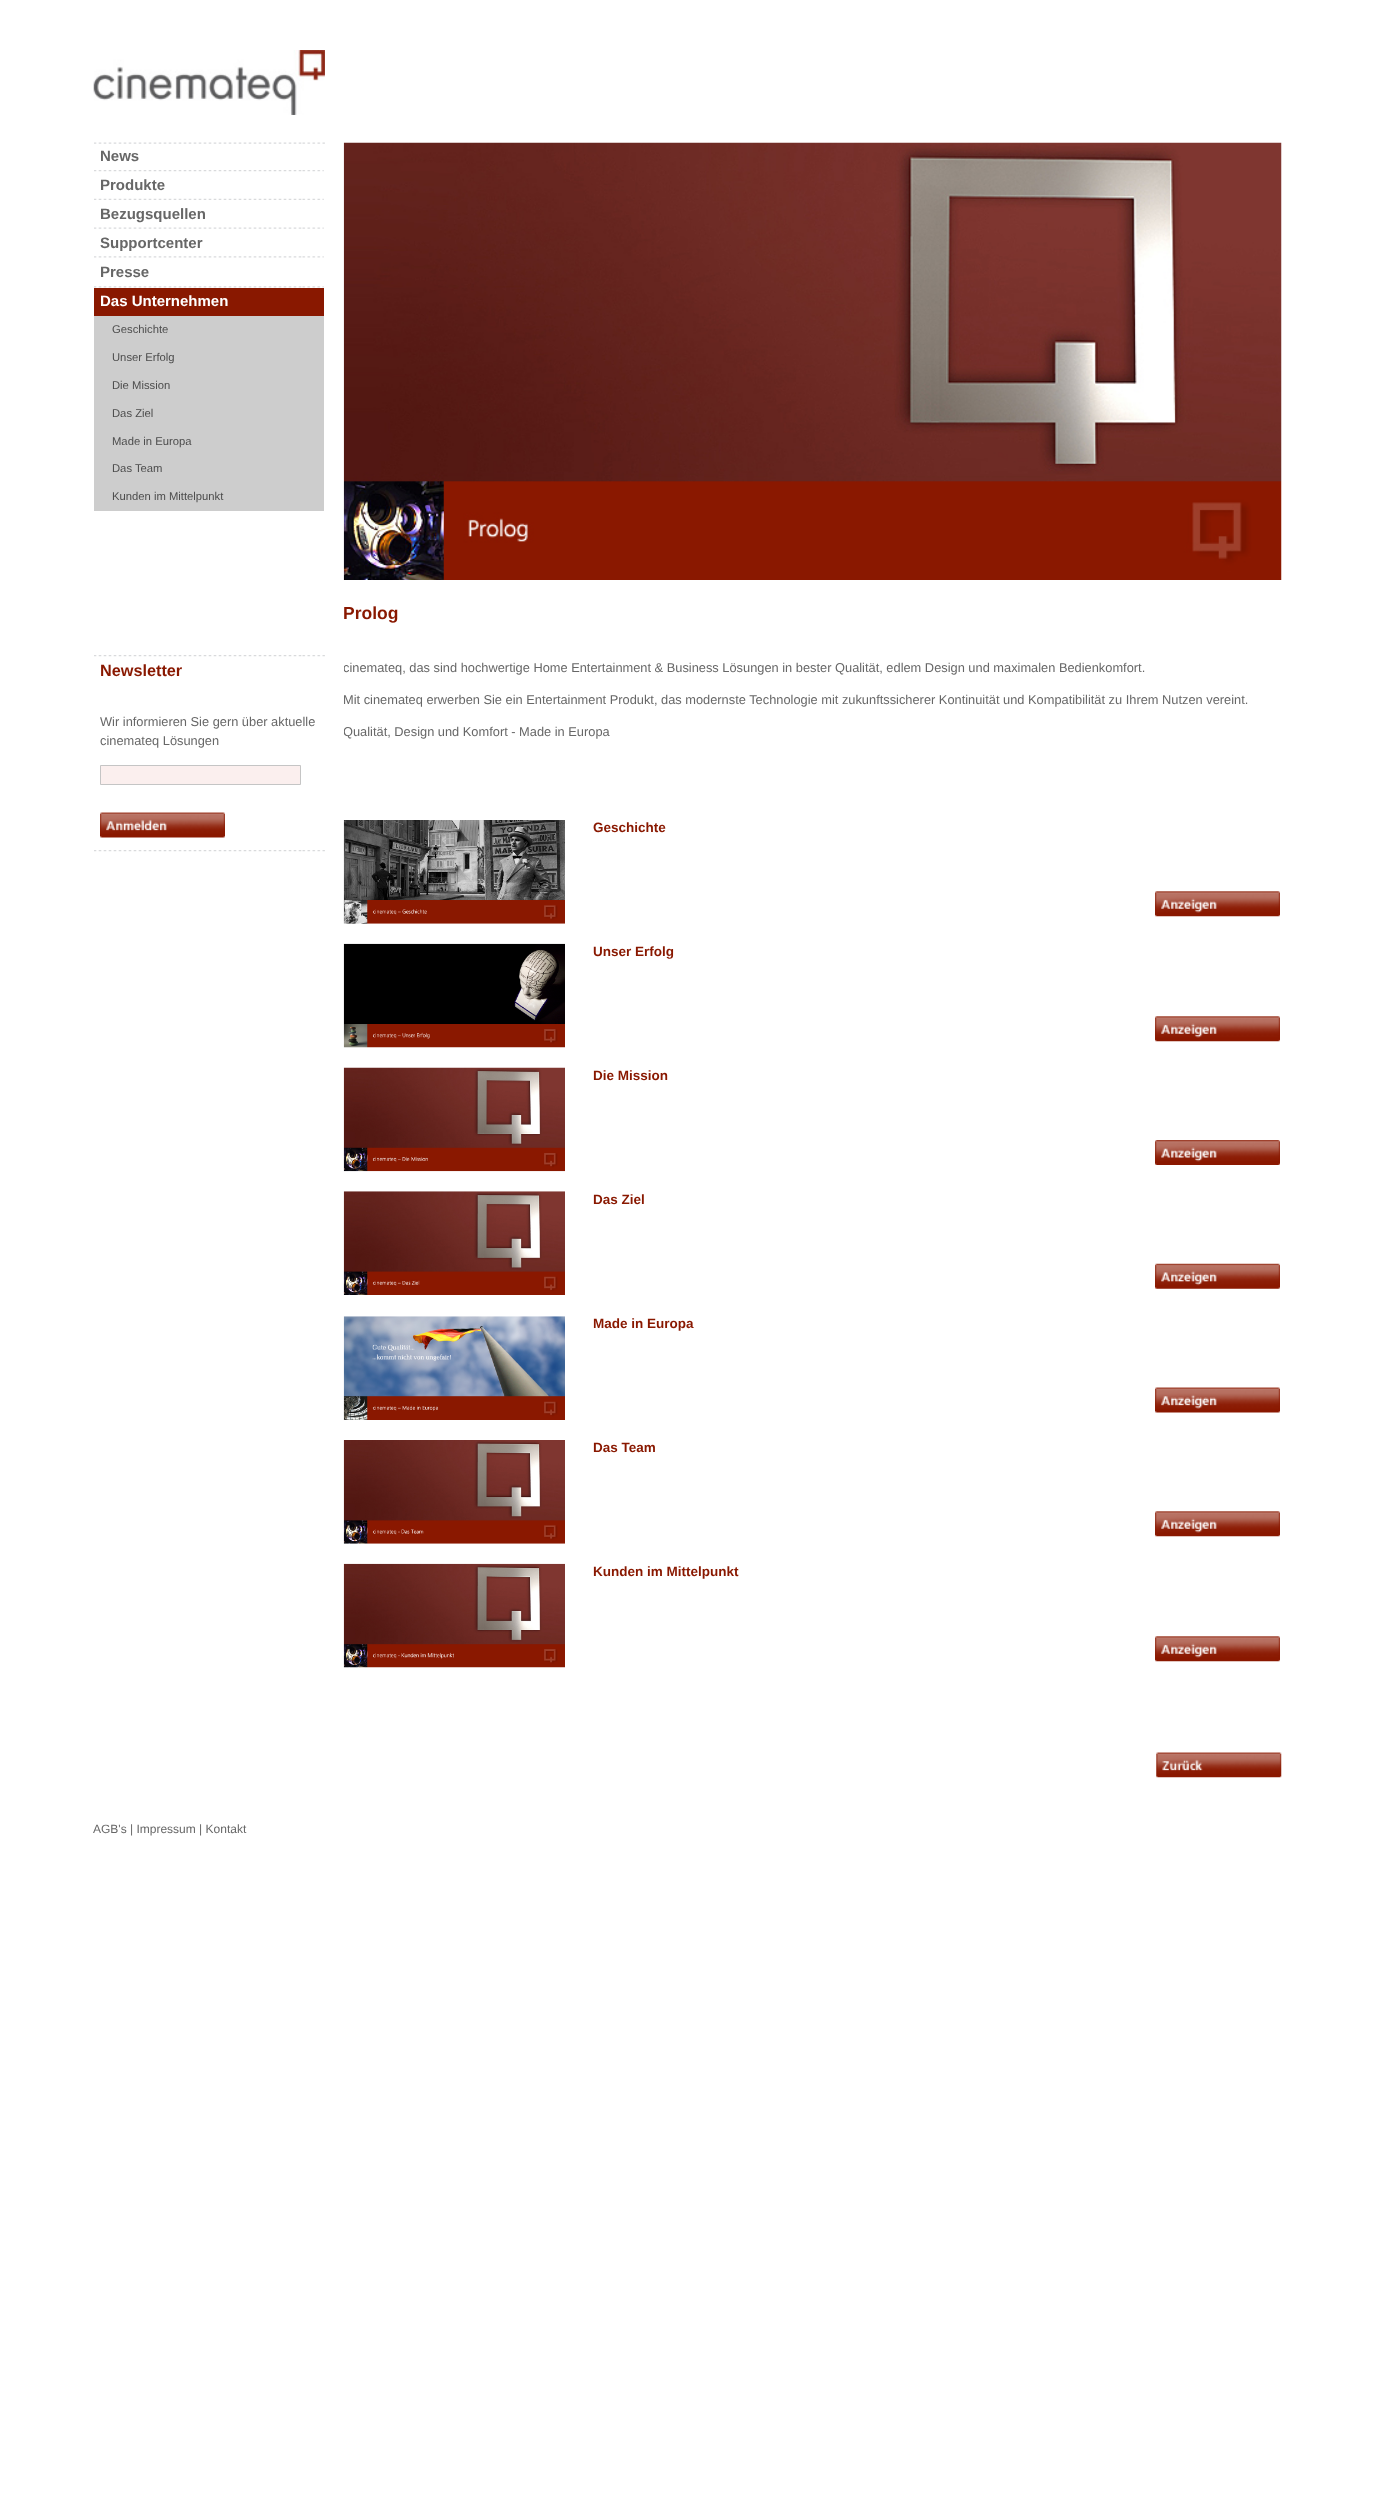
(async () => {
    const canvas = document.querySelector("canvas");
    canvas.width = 1380;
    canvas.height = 2510;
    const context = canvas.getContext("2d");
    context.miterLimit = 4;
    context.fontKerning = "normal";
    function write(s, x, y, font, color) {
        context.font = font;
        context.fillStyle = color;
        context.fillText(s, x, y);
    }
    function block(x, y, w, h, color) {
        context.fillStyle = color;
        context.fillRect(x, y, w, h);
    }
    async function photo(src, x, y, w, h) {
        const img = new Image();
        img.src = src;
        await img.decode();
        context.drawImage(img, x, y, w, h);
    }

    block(0, 0, 1380, 2510, "rgb(255, 255, 255)");
    await photo("media/1.png", 93, 50, 232, 65);
    await photo("media/2.png", 94, 142, 231, 2);
    await photo("media/3.png", 94, 170, 230, 2);
    write("News", 100, 161, "bold 15px Liberation Sans", "rgb(103, 103, 103)");
    await photo("media/4.png", 94, 198, 230, 2);
    write("Produkte", 100, 190, "bold 15px Liberation Sans", "rgb(103, 103, 103)");
    await photo("media/5.png", 94, 227, 230, 2);
    write("Bezugsquellen", 100, 219, "bold 15px Liberation Sans", "rgb(103, 103, 103)");
    await photo("media/6.png", 94, 256, 230, 2);
    write("Supportcenter", 100, 248, "bold 15px Liberation Sans", "rgb(103, 103, 103)");
    await photo("media/6.png", 94, 286, 230, 2);
    write("Presse", 100, 277, "bold 15px Liberation Sans", "rgb(103, 103, 103)");
    block(94, 288, 230, 28, "rgb(137, 24, 0)");
    write("Das Unternehmen", 100, 306, "bold 15px Liberation Sans", "rgb(255, 255, 255)");
    block(94, 316, 230, 195, "rgb(205, 205, 205)");
    write("Geschichte", 112, 333, "11.25px Liberation Sans", "rgb(76, 76, 76)");
    write("Unser Erfolg", 112, 361, "11.25px Liberation Sans", "rgb(76, 76, 76)");
    write("Die Mission", 112, 389, "11.25px Liberation Sans", "rgb(76, 76, 76)");
    write("Das Ziel", 112, 417, "11.25px Liberation Sans", "rgb(76, 76, 76)");
    write("Made in Europa", 112, 445, "11.25px Liberation Sans", "rgb(76, 76, 76)");
    write("Das Team", 112, 472, "11.25px Liberation Sans", "rgb(76, 76, 76)");
    write("Kunden im Mittelpunkt", 112, 500, "11.25px Liberation Sans", "rgb(76, 76, 76)");
    await photo("media/7.png", 94, 655, 231, 2);
    await photo("media/7.png", 94, 850, 231, 2);
    write("Newsletter", 100, 676, "bold 16.25px Liberation Sans", "rgb(137, 24, 0)");
    write("Wir informieren Sie gern über aktuelle", 100, 726, "12.83px Liberation Sans", "rgb(103, 103, 103)");
    write("cinemateq Lösungen", 100, 745, "12.83px Liberation Sans", "rgb(103, 103, 103)");
    context.fillStyle = "rgb(251, 239, 238)";
    context.beginPath();
    context.rect(100.5, 765.5, 200, 19);
    context.fill();
    context.strokeStyle = "rgb(197, 197, 197)";
    context.stroke();
    await photo("media/8.png", 100, 812, 125, 26);
    await photo("media/9.png", 343, 142, 939, 438);
    write("Prolog", 343, 619, "bold 17.5px Liberation Sans", "rgb(137, 24, 0)");
    context.save();
    context.beginPath();
    context.rect(344, 143, 944, 657);
    context.clip();
    write("cinemateq, das sind hochwertige Home Entertainment & Business Lösungen in bester Qualität, edlem Design und maximalen Bedienkomfort.", 343, 672, "12.83px Liberation Sans", "rgb(103, 103, 103)");
    context.restore();
    write("Mit cinemateq erwerben Sie ein Entertainment Produkt, das modernste Technologie mit zukunftssicherer Kontinuität und Kompatibilität zu Ihrem Nutzen vereint.", 343, 704, "12.83px Liberation Sans", "rgb(103, 103, 103)");
    context.save();
    context.beginPath();
    context.rect(344, 143, 944, 657);
    context.clip();
    write("Qualität, Design und Komfort - Made in Europa", 343, 736, "12.83px Liberation Sans", "rgb(103, 103, 103)");
    context.restore();
    await photo("media/10.png", 343, 820, 222, 104);
    write("Geschichte", 593, 832, "bold 13.5px Liberation Sans", "rgb(137, 24, 0)");
    await photo("media/11.png", 1155, 891, 125, 26);
    await photo("media/12.png", 343, 943, 222, 105);
    write("Unser Erfolg", 593, 956, "bold 13.5px Liberation Sans", "rgb(137, 24, 0)");
    await photo("media/11.png", 1155, 1016, 125, 26);
    await photo("media/13.png", 343, 1067, 222, 105);
    write("Die Mission", 593, 1080, "bold 13.5px Liberation Sans", "rgb(137, 24, 0)");
    await photo("media/14.png", 1155, 1140, 125, 25);
    await photo("media/15.png", 343, 1191, 222, 104);
    write("Das Ziel", 593, 1204, "bold 13.5px Liberation Sans", "rgb(137, 24, 0)");
    await photo("media/16.png", 1155, 1263, 125, 26);
    await photo("media/17.png", 343, 1316, 222, 104);
    write("Made in Europa", 593, 1328, "bold 13.5px Liberation Sans", "rgb(137, 24, 0)");
    await photo("media/18.png", 1155, 1387, 125, 26);
    await photo("media/19.png", 343, 1440, 222, 104);
    write("Das Team", 593, 1452, "bold 13.5px Liberation Sans", "rgb(137, 24, 0)");
    await photo("media/11.png", 1155, 1511, 125, 26);
    await photo("media/20.png", 343, 1563, 222, 105);
    write("Kunden im Mittelpunkt", 593, 1576, "bold 13.5px Liberation Sans", "rgb(137, 24, 0)");
    await photo("media/11.png", 1155, 1636, 125, 26);
    await photo("media/21.png", 1156, 1752, 126, 26);
    write("AGB's | Impressum | Kontakt", 93, 1833, "12px Liberation Sans", "rgb(103, 103, 103)");
})();
